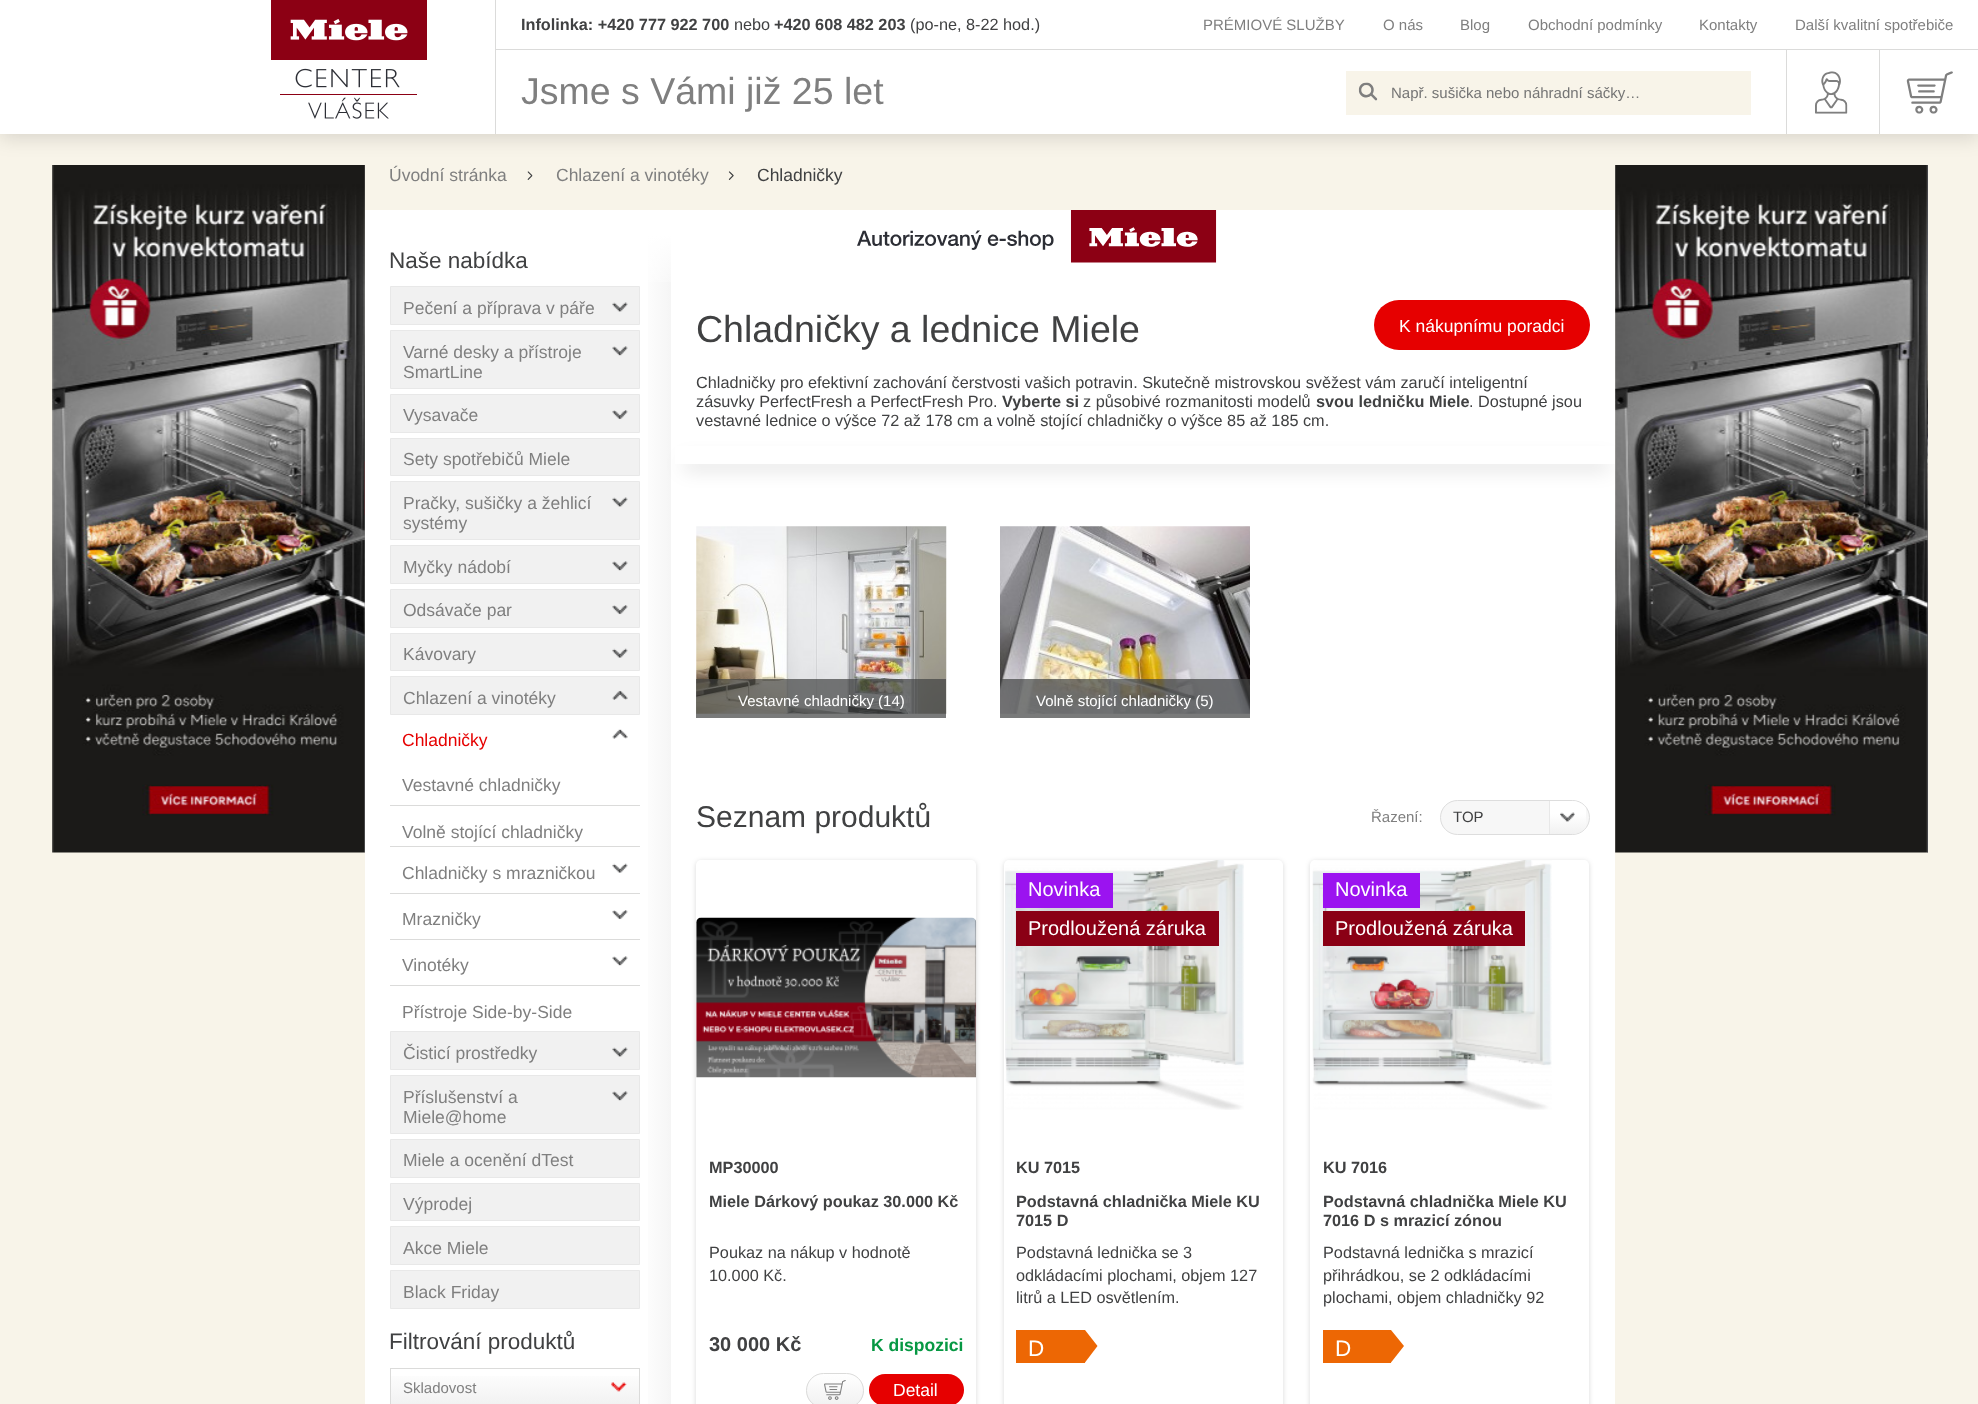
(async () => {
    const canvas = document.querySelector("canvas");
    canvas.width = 1978;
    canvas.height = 1404;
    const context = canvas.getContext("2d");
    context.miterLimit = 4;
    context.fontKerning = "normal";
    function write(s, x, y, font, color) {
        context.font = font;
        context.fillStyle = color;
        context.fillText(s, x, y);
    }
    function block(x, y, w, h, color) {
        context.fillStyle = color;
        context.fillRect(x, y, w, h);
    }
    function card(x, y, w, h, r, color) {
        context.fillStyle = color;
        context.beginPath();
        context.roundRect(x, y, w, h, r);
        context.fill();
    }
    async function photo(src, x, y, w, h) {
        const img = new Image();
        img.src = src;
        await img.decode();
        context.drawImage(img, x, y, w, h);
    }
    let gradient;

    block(0, 0, 1978, 1404, "rgb(248, 244, 233)");
    context.fillStyle = "rgba(0, 0, 0, 0.13)";
    context.filter = "blur(9.5px)";
    context.beginPath();
    context.rect(0, 4, 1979, 134);
    context.fill();
    context.filter = "none";
    block(0, 0, 1978, 134, "rgb(255, 255, 255)");
    await photo("media/1.png", 271, 0, 156, 119);
    block(495, 0, 1, 134, "rgb(219, 219, 218)");
    block(496, 49, 1482, 1, "rgb(219, 219, 218)");
    write("Infolinka: +420 777 922 700", 521, 30, "bold 16.25px Liberation Sans", "rgb(64, 65, 66)");
    write("nebo", 734, 30, "16.25px Liberation Sans", "rgb(64, 65, 66)");
    write("+420 608 482 203", 774, 30, "bold 16.25px Liberation Sans", "rgb(64, 65, 66)");
    write("(po-ne, 8-22 hod.)", 910, 30, "16.25px Liberation Sans", "rgb(64, 65, 66)");
    write("PRÉMIOVÉ SLUŽBY", 1203, 30, "15px Liberation Sans", "rgb(127, 127, 127)");
    write("O nás", 1383, 30, "15px Liberation Sans", "rgb(127, 127, 127)");
    write("Blog", 1460, 30, "15px Liberation Sans", "rgb(127, 127, 127)");
    write("Obchodní podmínky", 1528, 30, "15px Liberation Sans", "rgb(127, 127, 127)");
    write("Kontakty", 1699, 30, "15px Liberation Sans", "rgb(127, 127, 127)");
    write("Další kvalitní spotřebiče", 1795, 30, "15px Liberation Sans", "rgb(127, 127, 127)");
    write("Jsme s Vámi již 25 let", 521, 104, "37.5px Liberation Sans", "rgb(127, 127, 127)");
    block(1346, 71, 405, 44, "rgb(248, 244, 233)");
    await photo("media/2.png", 1358, 82, 20, 19);
    write("Např. sušička nebo náhradní sáčky…", 1391, 98, "15px Liberation Sans", "rgb(117, 117, 117)");
    block(1786, 50, 1, 84, "rgb(219, 219, 218)");
    await photo("media/3.png", 1815, 71, 33, 43);
    block(1879, 50, 1, 84, "rgb(219, 219, 218)");
    await photo("media/4.png", 1906, 71, 47, 43);
    await photo("media/5.png", 52, 165, 313, 688);
    await photo("media/6.png", 364, 165, 1, 688);
    write("Úvodní stránka", 389, 181, "17.5px Liberation Sans", "rgb(127, 127, 127)");
    await photo("media/7.png", 527, 171, 6, 9);
    write("Chlazení a vinotéky", 556, 181, "17.5px Liberation Sans", "rgb(127, 127, 127)");
    await photo("media/8.png", 728, 171, 6, 9);
    write("Chladničky", 757, 181, "17.5px Liberation Sans", "rgb(64, 65, 66)");
    await photo("media/9.png", 1615, 165, 313, 688);
    await photo("media/10.png", 1927, 165, 1, 688);
    block(365, 210, 1250, 1194, "rgb(255, 255, 255)");
    gradient = context.createLinearGradient(640, 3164, 671, 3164);
    gradient.addColorStop(0, "rgb(255, 255, 255)");
    gradient.addColorStop(1, "rgb(245, 245, 245)");
    context.fillStyle = gradient;
    context.fillRect(648, 235, 23, 1169);
    write("Naše nabídka", 389, 268, "22.5px Liberation Sans", "rgb(64, 65, 66)");
    context.fillStyle = "rgb(241, 241, 241)";
    context.beginPath();
    context.rect(390.5, 286.5, 249, 38);
    context.fill();
    context.strokeStyle = "rgb(232, 232, 232)";
    context.stroke();
    write("Pečení a příprava v páře", 403, 314, "17.5px Liberation Sans", "rgb(127, 127, 127)");
    await photo("media/11.png", 612, 302, 16, 10);
    context.fillStyle = "rgb(241, 241, 241)";
    context.beginPath();
    context.rect(390.5, 330.5, 249, 58);
    context.fill();
    context.stroke();
    write("Varné desky a přístroje", 403, 358, "17.5px Liberation Sans", "rgb(127, 127, 127)");
    write("SmartLine", 403, 378, "17.5px Liberation Sans", "rgb(127, 127, 127)");
    await photo("media/12.png", 612, 346, 16, 10);
    context.fillStyle = "rgb(241, 241, 241)";
    context.beginPath();
    context.rect(390.5, 394.5, 249, 38);
    context.fill();
    context.stroke();
    write("Vysavače", 403, 421, "17.5px Liberation Sans", "rgb(127, 127, 127)");
    await photo("media/13.png", 612, 410, 16, 10);
    context.fillStyle = "rgb(241, 241, 241)";
    context.beginPath();
    context.rect(390.5, 438.5, 249, 37);
    context.fill();
    context.stroke();
    write("Sety spotřebičů Miele", 403, 465, "17.5px Liberation Sans", "rgb(127, 127, 127)");
    context.fillStyle = "rgb(241, 241, 241)";
    context.beginPath();
    context.rect(390.5, 481.5, 249, 58);
    context.fill();
    context.stroke();
    write("Pračky, sušičky a žehlicí", 403, 509, "17.5px Liberation Sans", "rgb(127, 127, 127)");
    write("systémy", 403, 529, "17.5px Liberation Sans", "rgb(127, 127, 127)");
    await photo("media/11.png", 612, 497, 16, 10);
    context.fillStyle = "rgb(241, 241, 241)";
    context.beginPath();
    context.rect(390.5, 545.5, 249, 38);
    context.fill();
    context.stroke();
    write("Myčky nádobí", 403, 573, "17.5px Liberation Sans", "rgb(127, 127, 127)");
    await photo("media/12.png", 612, 561, 16, 10);
    context.fillStyle = "rgb(241, 241, 241)";
    context.beginPath();
    context.rect(390.5, 589.5, 249, 38);
    context.fill();
    context.stroke();
    write("Odsávače par", 403, 616, "17.5px Liberation Sans", "rgb(127, 127, 127)");
    await photo("media/13.png", 612, 605, 16, 10);
    context.fillStyle = "rgb(241, 241, 241)";
    context.beginPath();
    context.rect(390.5, 633.5, 249, 37);
    context.fill();
    context.stroke();
    write("Kávovary", 403, 660, "17.5px Liberation Sans", "rgb(127, 127, 127)");
    await photo("media/14.png", 612, 648, 16, 10);
    context.fillStyle = "rgb(241, 241, 241)";
    context.beginPath();
    context.rect(390.5, 676.5, 249, 38);
    context.fill();
    context.stroke();
    write("Chlazení a vinotéky", 403, 704, "17.5px Liberation Sans", "rgb(127, 127, 127)");
    await photo("media/15.png", 612, 690, 16, 10);
    write("Chladničky", 402, 746, "17.5px Liberation Sans", "rgb(230, 0, 0)");
    await photo("media/16.png", 612, 729, 16, 10);
    write("Vestavné chladničky", 402, 791, "17.5px Liberation Sans", "rgb(127, 127, 127)");
    block(390, 805, 250, 1, "rgb(219, 219, 218)");
    write("Volně stojící chladničky", 402, 838, "17.5px Liberation Sans", "rgb(127, 127, 127)");
    block(390, 846, 250, 1, "rgb(219, 219, 218)");
    write("Chladničky s mrazničkou", 402, 879, "17.5px Liberation Sans", "rgb(127, 127, 127)");
    await photo("media/17.png", 612, 863, 16, 10);
    block(390, 893, 250, 1, "rgb(219, 219, 218)");
    write("Mrazničky", 402, 925, "17.5px Liberation Sans", "rgb(127, 127, 127)");
    await photo("media/18.png", 612, 910, 16, 10);
    block(390, 939, 250, 1, "rgb(219, 219, 218)");
    write("Vinotéky", 402, 971, "17.5px Liberation Sans", "rgb(127, 127, 127)");
    await photo("media/19.png", 612, 956, 16, 10);
    block(390, 985, 250, 1, "rgb(219, 219, 218)");
    write("Přístroje Side-by-Side", 402, 1018, "17.5px Liberation Sans", "rgb(127, 127, 127)");
    context.fillStyle = "rgb(241, 241, 241)";
    context.beginPath();
    context.rect(390.5, 1031.5, 249, 38);
    context.fill();
    context.stroke();
    write("Čisticí prostředky", 403, 1059, "17.5px Liberation Sans", "rgb(127, 127, 127)");
    await photo("media/11.png", 612, 1047, 16, 10);
    context.fillStyle = "rgb(241, 241, 241)";
    context.beginPath();
    context.rect(390.5, 1075.5, 249, 58);
    context.fill();
    context.stroke();
    write("Příslušenství a", 403, 1103, "17.5px Liberation Sans", "rgb(127, 127, 127)");
    write("Miele@home", 403, 1123, "17.5px Liberation Sans", "rgb(127, 127, 127)");
    await photo("media/12.png", 612, 1091, 16, 10);
    context.fillStyle = "rgb(241, 241, 241)";
    context.beginPath();
    context.rect(390.5, 1139.5, 249, 38);
    context.fill();
    context.stroke();
    write("Miele a ocenění dTest", 403, 1166, "17.5px Liberation Sans", "rgb(127, 127, 127)");
    context.fillStyle = "rgb(241, 241, 241)";
    context.beginPath();
    context.rect(390.5, 1183.5, 249, 37);
    context.fill();
    context.stroke();
    write("Výprodej", 403, 1210, "17.5px Liberation Sans", "rgb(127, 127, 127)");
    context.fillStyle = "rgb(241, 241, 241)";
    context.beginPath();
    context.rect(390.5, 1226.5, 249, 38);
    context.fill();
    context.stroke();
    write("Akce Miele", 403, 1254, "17.5px Liberation Sans", "rgb(127, 127, 127)");
    context.fillStyle = "rgb(241, 241, 241)";
    context.beginPath();
    context.rect(390.5, 1270.5, 249, 38);
    context.fill();
    context.stroke();
    write("Black Friday", 403, 1298, "17.5px Liberation Sans", "rgb(127, 127, 127)");
    write("Filtrování produktů", 389, 1349, "22.5px Liberation Sans", "rgb(64, 65, 66)");
    gradient = context.createLinearGradient(515, 1369, 515, 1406);
    gradient.addColorStop(0, "rgb(255, 255, 255)");
    gradient.addColorStop(1, "rgb(241, 241, 241)");
    context.fillStyle = gradient;
    context.fillRect(391, 1376, 248, 28);
    context.strokeStyle = "rgb(219, 219, 218)";
    context.strokeRect(390.5, 1368.5, 249, 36);
    write("Skladovost", 403, 1393, "15px Liberation Sans", "rgb(127, 127, 127)");
    await photo("media/20.png", 611, 1382, 16, 10);
    gradient = context.createLinearGradient(656, 235, 656, 298);
    gradient.addColorStop(0, "rgb(255, 255, 255)");
    gradient.addColorStop(1, "rgba(255, 255, 255, 0)");
    context.fillStyle = gradient;
    context.fillRect(648, 235, 23, 47);
    await photo("media/21.png", 857, 210, 360, 53);
    write("Chladničky a lednice Miele", 696, 342, "37.5px Liberation Sans", "rgb(64, 65, 66)");
    card(1374, 300, 216, 50, 25, "rgb(230, 0, 0)");
    write("K nákupnímu poradci", 1399, 332, "17.5px Liberation Sans", "rgb(255, 255, 255)");
    write("Chladničky pro efektivní zachování čerstvosti vašich potravin. Skutečně mistrovskou svěžest vám zaručí inteligentní", 696, 388, "16.25px Liberation Sans", "rgb(64, 65, 66)");
    write("zásuvky PerfectFresh a PerfectFresh Pro.", 696, 407, "16.25px Liberation Sans", "rgb(64, 65, 66)");
    write("Vyberte si", 1002, 407, "bold 16.25px Liberation Sans", "rgb(64, 65, 66)");
    write("z působivé rozmanitosti modelů", 1083, 407, "16.25px Liberation Sans", "rgb(64, 65, 66)");
    write("svou ledničku Miele", 1316, 407, "bold 16.25px Liberation Sans", "rgb(64, 65, 66)");
    write(". Dostupné jsou", 1469, 407, "16.25px Liberation Sans", "rgb(64, 65, 66)");
    write("vestavné lednice o výšce 72 až 178 cm a volně stojící chladničky o výšce 85 až 185 cm.", 696, 426, "16.25px Liberation Sans", "rgb(64, 65, 66)");
    context.fillStyle = "rgba(0, 0, 0, 0.2)";
    context.filter = "blur(9.5px)";
    context.beginPath();
    context.rect(684, 461, 925, 7);
    context.fill();
    context.filter = "none";
    block(675, 446, 940, 18, "rgb(255, 255, 255)");
    await photo("media/22.png", 696, 526, 251, 188);
    block(696, 679, 250, 39, "rgba(64, 65, 66, 0.7)");
    write("Vestavné chladničky (14)", 738, 706, "15px Liberation Sans", "rgb(255, 255, 255)");
    await photo("media/23.png", 1000, 526, 250, 188);
    block(1000, 679, 250, 39, "rgba(64, 65, 66, 0.7)");
    write("Volně stojící chladničky (5)", 1036, 706, "15px Liberation Sans", "rgb(255, 255, 255)");
    write("Seznam produktů", 696, 827, "30px Liberation Sans", "rgb(64, 65, 66)");
    write("Řazení:", 1371, 822, "15px Liberation Sans", "rgb(127, 127, 127)");
    context.fillStyle = "rgb(247, 247, 247)";
    context.beginPath();
    context.roundRect(1440.5, 800.5, 149, 34, 17);
    context.fill();
    context.strokeStyle = "rgb(221, 221, 221)";
    context.stroke();
    write("TOP", 1453, 822, "15px Liberation Sans", "rgb(64, 65, 66)");
    context.save();
    context.beginPath();
    context.roundRect(1441, 801, 148, 33, 16.5);
    context.clip();
    gradient = context.createLinearGradient(1568, 801, 1568, 834);
    gradient.addColorStop(0.4, "rgb(255, 255, 255)");
    gradient.addColorStop(1, "rgb(241, 241, 241)");
    context.fillStyle = gradient;
    context.fillRect(1550, 801, 36, 33);
    context.restore();
    block(1549, 801, 1, 33, "rgb(232, 232, 232)");
    await photo("media/24.png", 1560, 812, 15, 10);
    context.fillStyle = "rgba(0, 0, 0, 0.15)";
    context.filter = "blur(2.5px)";
    context.beginPath();
    context.roundRect(696, 861, 280, 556, 5);
    context.fill();
    context.filter = "none";
    card(696, 860, 280, 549, 5, "rgb(255, 255, 255)");
    await photo("media/25.png", 696, 917, 281, 161);
    write("MP30000", 709, 1173, "bold 16.25px Liberation Sans", "rgb(64, 65, 66)");
    write("Miele Dárkový poukaz 30.000 Kč", 709, 1207, "bold 16.25px Liberation Sans", "rgb(64, 65, 66)");
    write("Poukaz na nákup v hodnotě", 709, 1258, "16.25px Liberation Sans", "rgb(64, 65, 66)");
    write("10.000 Kč.", 709, 1281, "16.25px Liberation Sans", "rgb(64, 65, 66)");
    write("30 000 Kč", 709, 1351, "bold 20px Liberation Sans", "rgb(64, 65, 66)");
    write("K dispozici", 871, 1351, "bold 17.5px Liberation Sans", "rgb(6, 152, 67)");
    context.save();
    context.beginPath();
    context.roundRect(806, 1373, 58, 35, 17.5);
    context.clip();
    gradient = context.createLinearGradient(835, 1374, 835, 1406);
    gradient.addColorStop(0, "rgb(255, 255, 255)");
    gradient.addColorStop(1, "rgb(241, 241, 241)");
    context.fillStyle = gradient;
    context.fillRect(806, 1374, 58, 30);
    context.restore();
    context.beginPath();
    context.roundRect(806.5, 1373.5, 57, 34, 17);
    context.strokeStyle = "rgb(219, 219, 218)";
    context.stroke();
    await photo("media/26.png", 824, 1380, 22, 20);
    card(869, 1374, 95, 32, 16, "rgb(230, 0, 0)");
    write("Detail", 893, 1396, "17.5px Liberation Sans", "rgb(255, 255, 255)");
    context.fillStyle = "rgba(0, 0, 0, 0.15)";
    context.filter = "blur(2.5px)";
    context.beginPath();
    context.roundRect(1004, 861, 279, 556, 5);
    context.fill();
    context.filter = "none";
    card(1004, 860, 279, 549, 5, "rgb(255, 255, 255)");
    await photo("media/27.png", 1005, 860, 239, 250);
    block(1016, 873, 97, 35, "rgb(155, 19, 240)");
    write("Novinka", 1028, 896, "20px Liberation Sans", "rgb(255, 255, 255)");
    block(1016, 911, 203, 35, "rgb(138, 0, 21)");
    write("Prodloužená záruka", 1028, 935, "20px Liberation Sans", "rgb(255, 255, 255)");
    write("KU 7015", 1016, 1173, "bold 16.25px Liberation Sans", "rgb(64, 65, 66)");
    write("Podstavná chladnička Miele KU", 1016, 1207, "bold 16.25px Liberation Sans", "rgb(64, 65, 66)");
    write("7015 D", 1016, 1226, "bold 16.25px Liberation Sans", "rgb(64, 65, 66)");
    write("Podstavná lednička se 3", 1016, 1258, "16.25px Liberation Sans", "rgb(64, 65, 66)");
    write("odkládacími plochami, objem 127", 1016, 1281, "16.25px Liberation Sans", "rgb(64, 65, 66)");
    write("litrů a LED osvětlením.", 1016, 1303, "16.25px Liberation Sans", "rgb(64, 65, 66)");
    block(1016, 1330, 69, 33, "rgb(237, 103, 4)");
    write("D", 1028, 1356, "22.5px Liberation Sans", "rgb(255, 255, 255)");
    context.fillStyle = "rgb(237, 103, 4)";
    context.beginPath();
    context.moveTo(1085, 1362.5);
    context.lineTo(1085, 1330);
    context.lineTo(1097.5, 1346);
    context.closePath();
    context.fill();
    context.fillStyle = "rgba(0, 0, 0, 0.15)";
    context.filter = "blur(2.5px)";
    context.beginPath();
    context.roundRect(1310, 861, 279, 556, 5);
    context.fill();
    context.filter = "none";
    card(1310, 860, 279, 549, 5, "rgb(255, 255, 255)");
    await photo("media/28.png", 1312, 860, 240, 250);
    block(1323, 873, 97, 35, "rgb(155, 19, 240)");
    write("Novinka", 1335, 896, "20px Liberation Sans", "rgb(255, 255, 255)");
    block(1323, 911, 202, 35, "rgb(138, 0, 21)");
    write("Prodloužená záruka", 1335, 935, "20px Liberation Sans", "rgb(255, 255, 255)");
    write("KU 7016", 1323, 1173, "bold 16.25px Liberation Sans", "rgb(64, 65, 66)");
    write("Podstavná chladnička Miele KU", 1323, 1207, "bold 16.25px Liberation Sans", "rgb(64, 65, 66)");
    write("7016 D s mrazicí zónou", 1323, 1226, "bold 16.25px Liberation Sans", "rgb(64, 65, 66)");
    write("Podstavná lednička s mrazicí", 1323, 1258, "16.25px Liberation Sans", "rgb(64, 65, 66)");
    write("přihrádkou, se 2 odkládacími", 1323, 1281, "16.25px Liberation Sans", "rgb(64, 65, 66)");
    write("plochami, objem chladničky 92", 1323, 1303, "16.25px Liberation Sans", "rgb(64, 65, 66)");
    block(1323, 1330, 68, 33, "rgb(237, 103, 4)");
    write("D", 1335, 1356, "22.5px Liberation Sans", "rgb(255, 255, 255)");
    context.fillStyle = "rgb(237, 103, 4)";
    context.beginPath();
    context.moveTo(1391, 1362.5);
    context.lineTo(1391, 1330);
    context.lineTo(1404, 1346);
    context.closePath();
    context.fill();
})();
